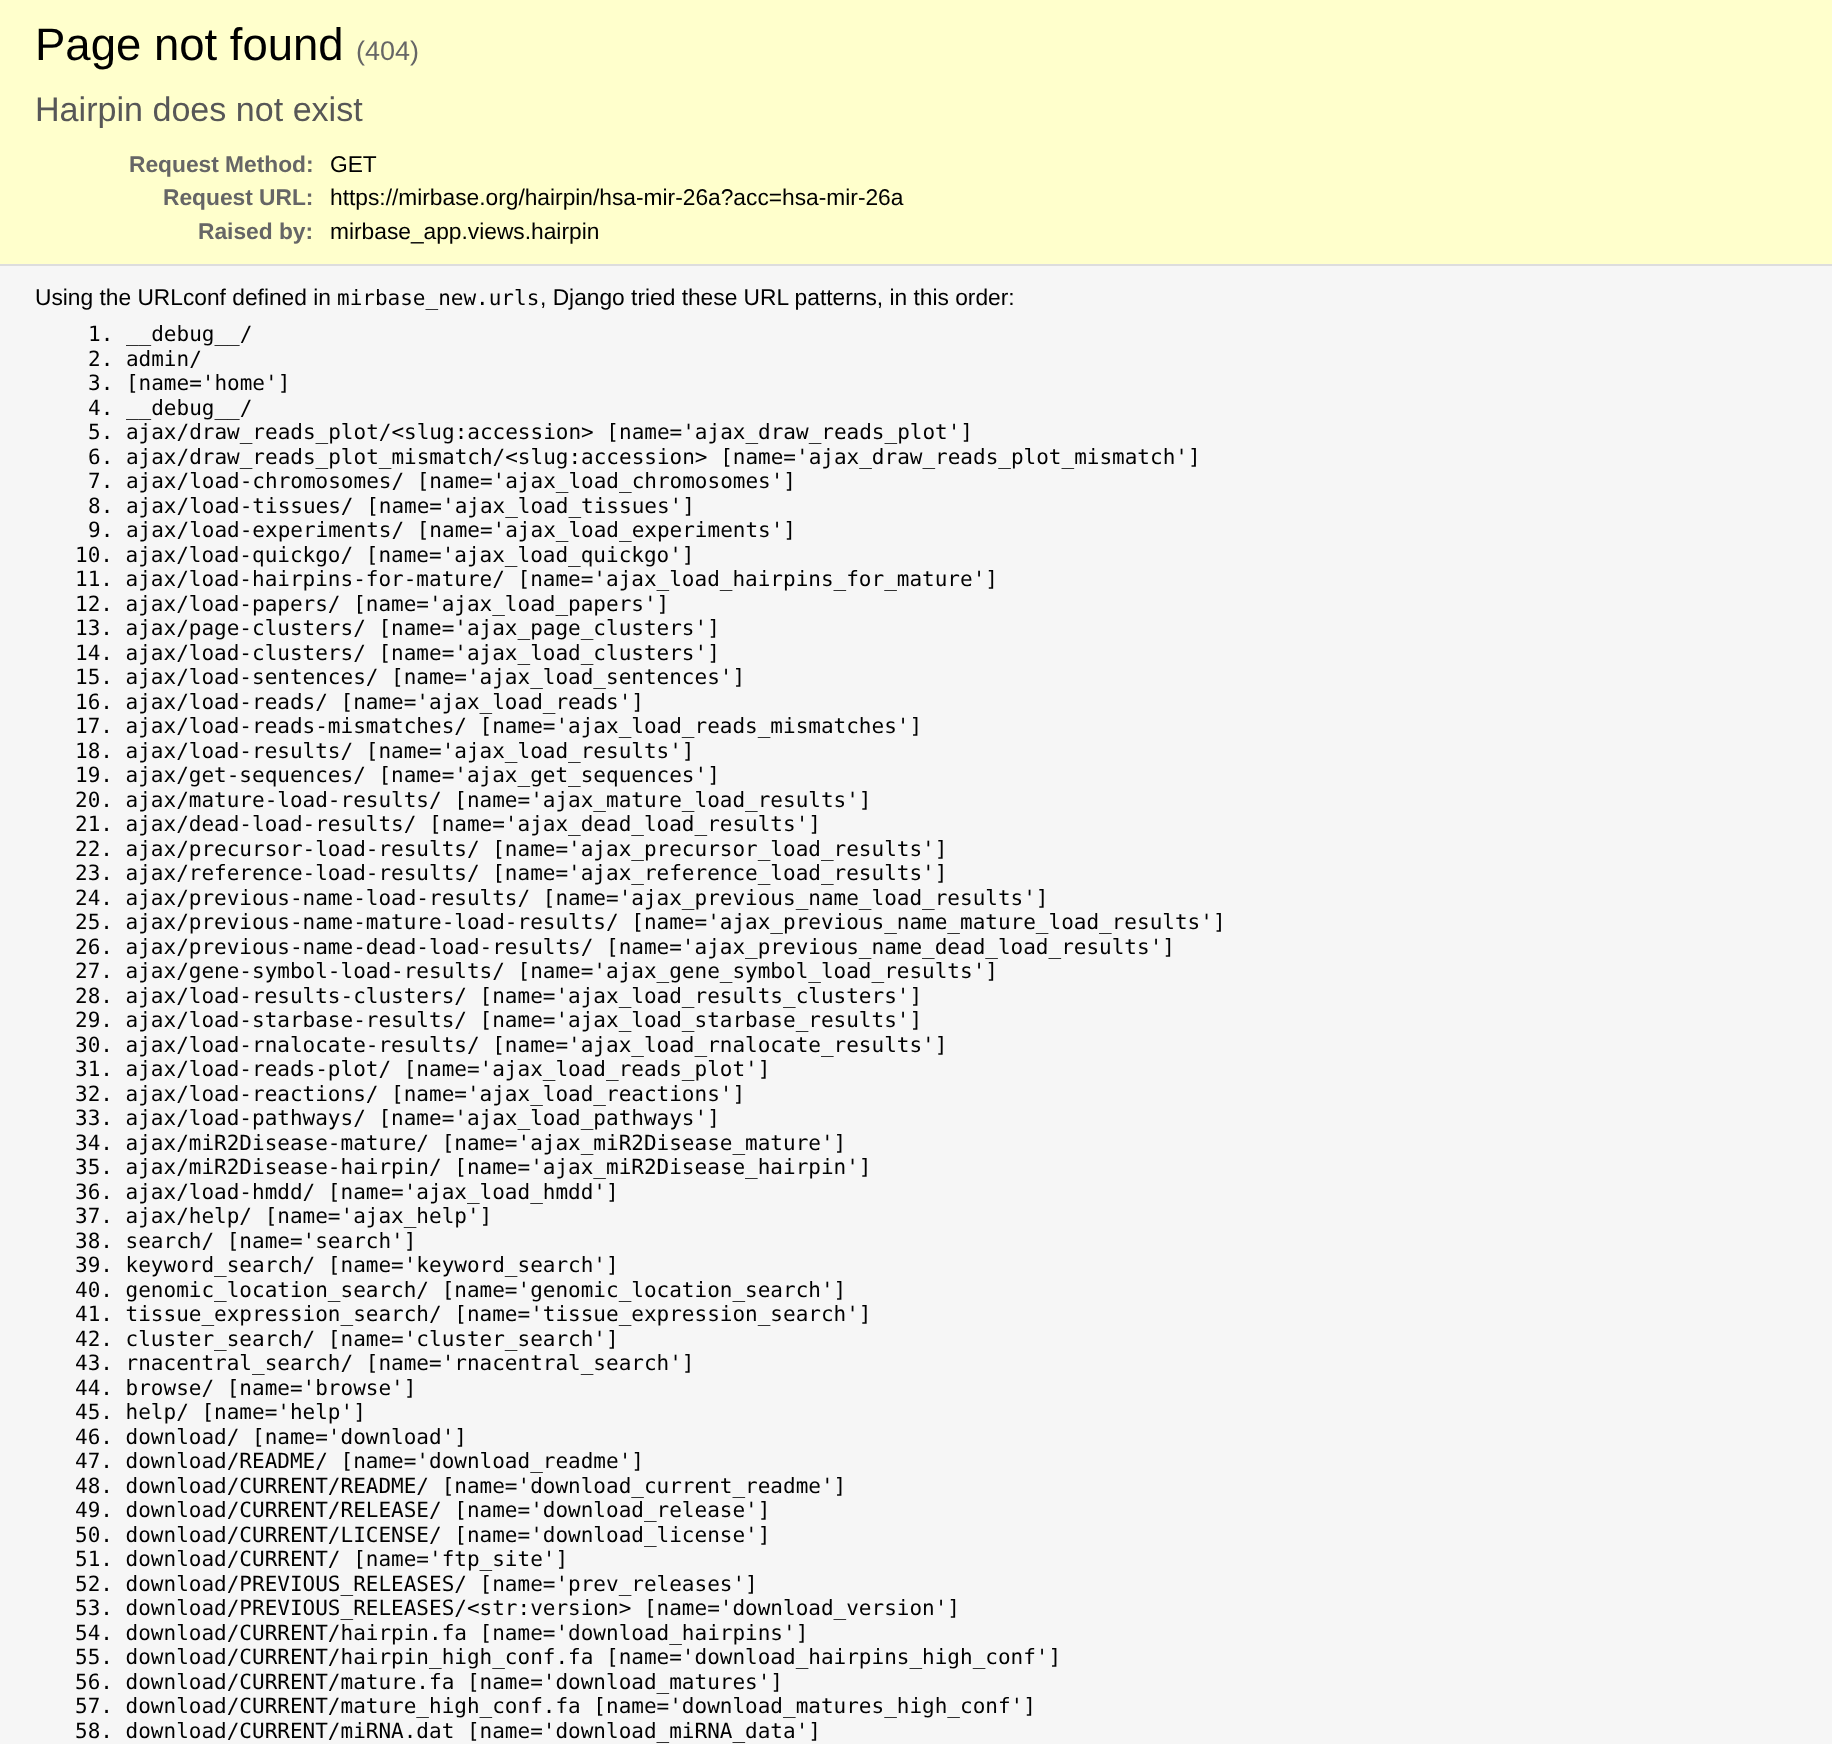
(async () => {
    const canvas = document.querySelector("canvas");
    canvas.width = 1832;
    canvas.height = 1744;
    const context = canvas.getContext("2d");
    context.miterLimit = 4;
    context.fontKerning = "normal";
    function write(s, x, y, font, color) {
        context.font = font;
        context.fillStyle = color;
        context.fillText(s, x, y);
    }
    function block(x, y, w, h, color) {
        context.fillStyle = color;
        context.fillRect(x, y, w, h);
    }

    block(0, 0, 1832, 1744, "rgb(255, 255, 204)");
    block(0, 264, 1832, 2, "rgb(221, 221, 221)");
    write("Page not found", 35, 60, "45.5px Liberation Sans", "rgb(0, 0, 0)");
    write("(404)", 356, 60, "27px Liberation Sans", "rgb(102, 102, 102)");
    write("Hairpin does not exist", 35, 121, "34.1px Liberation Sans", "rgb(87, 87, 87)");
    write("Request Method:", 129, 172, "bold 22.75px Liberation Sans", "rgb(102, 102, 102)");
    write("GET", 330, 172, "22.75px Liberation Sans", "rgb(0, 0, 0)");
    write("Request URL:", 163, 205, "bold 22.75px Liberation Sans", "rgb(102, 102, 102)");
    write("https://mirbase.org/hairpin/hsa-mir-26a?acc=hsa-mir-26a", 330, 205, "22.75px Liberation Sans", "rgb(0, 0, 0)");
    write("Raised by:", 198, 239, "bold 22.75px Liberation Sans", "rgb(102, 102, 102)");
    write("mirbase_app.views.hairpin", 330, 239, "22.75px Liberation Sans", "rgb(0, 0, 0)");
    block(0, 266, 1832, 1478, "rgb(246, 246, 246)");
    write("Using the URLconf defined in", 35, 305, "22.75px Liberation Sans", "rgb(0, 0, 0)");
    write("mirbase_new.urls", 337, 305, "21px DejaVu Sans Mono", "rgb(0, 0, 0)");
    write(", Django tried these URL patterns, in this order:", 540, 305, "22.75px Liberation Sans", "rgb(0, 0, 0)");
    write("1. __debug__/", 88, 341, "21px DejaVu Sans Mono", "rgb(0, 0, 0)");
    write("2. admin/", 88, 366, "21px DejaVu Sans Mono", "rgb(0, 0, 0)");
    write("3. [name='home']", 88, 390, "21px DejaVu Sans Mono", "rgb(0, 0, 0)");
    write("4. __debug__/", 88, 415, "21px DejaVu Sans Mono", "rgb(0, 0, 0)");
    write("5. ajax/draw_reads_plot/<slug:accession> [name='ajax_draw_reads_plot']", 88, 439, "21px DejaVu Sans Mono", "rgb(0, 0, 0)");
    write("6. ajax/draw_reads_plot_mismatch/<slug:accession> [name='ajax_draw_reads_plot_mismatch']", 88, 464, "21px DejaVu Sans Mono", "rgb(0, 0, 0)");
    write("7. ajax/load-chromosomes/ [name='ajax_load_chromosomes']", 88, 488, "21px DejaVu Sans Mono", "rgb(0, 0, 0)");
    write("8. ajax/load-tissues/ [name='ajax_load_tissues']", 88, 513, "21px DejaVu Sans Mono", "rgb(0, 0, 0)");
    write("9. ajax/load-experiments/ [name='ajax_load_experiments']", 88, 537, "21px DejaVu Sans Mono", "rgb(0, 0, 0)");
    write("10. ajax/load-quickgo/ [name='ajax_load_quickgo']", 75, 562, "21px DejaVu Sans Mono", "rgb(0, 0, 0)");
    write("11. ajax/load-hairpins-for-mature/ [name='ajax_load_hairpins_for_mature']", 75, 586, "21px DejaVu Sans Mono", "rgb(0, 0, 0)");
    write("12. ajax/load-papers/ [name='ajax_load_papers']", 75, 611, "21px DejaVu Sans Mono", "rgb(0, 0, 0)");
    write("13. ajax/page-clusters/ [name='ajax_page_clusters']", 75, 635, "21px DejaVu Sans Mono", "rgb(0, 0, 0)");
    write("14. ajax/load-clusters/ [name='ajax_load_clusters']", 75, 660, "21px DejaVu Sans Mono", "rgb(0, 0, 0)");
    write("15. ajax/load-sentences/ [name='ajax_load_sentences']", 75, 684, "21px DejaVu Sans Mono", "rgb(0, 0, 0)");
    write("16. ajax/load-reads/ [name='ajax_load_reads']", 75, 709, "21px DejaVu Sans Mono", "rgb(0, 0, 0)");
    write("17. ajax/load-reads-mismatches/ [name='ajax_load_reads_mismatches']", 75, 733, "21px DejaVu Sans Mono", "rgb(0, 0, 0)");
    write("18. ajax/load-results/ [name='ajax_load_results']", 75, 758, "21px DejaVu Sans Mono", "rgb(0, 0, 0)");
    write("19. ajax/get-sequences/ [name='ajax_get_sequences']", 75, 782, "21px DejaVu Sans Mono", "rgb(0, 0, 0)");
    write("20. ajax/mature-load-results/ [name='ajax_mature_load_results']", 75, 807, "21px DejaVu Sans Mono", "rgb(0, 0, 0)");
    write("21. ajax/dead-load-results/ [name='ajax_dead_load_results']", 75, 831, "21px DejaVu Sans Mono", "rgb(0, 0, 0)");
    write("22. ajax/precursor-load-results/ [name='ajax_precursor_load_results']", 75, 856, "21px DejaVu Sans Mono", "rgb(0, 0, 0)");
    write("23. ajax/reference-load-results/ [name='ajax_reference_load_results']", 75, 880, "21px DejaVu Sans Mono", "rgb(0, 0, 0)");
    write("24. ajax/previous-name-load-results/ [name='ajax_previous_name_load_results']", 75, 905, "21px DejaVu Sans Mono", "rgb(0, 0, 0)");
    write("25. ajax/previous-name-mature-load-results/ [name='ajax_previous_name_mature_load_results']", 75, 929, "21px DejaVu Sans Mono", "rgb(0, 0, 0)");
    write("26. ajax/previous-name-dead-load-results/ [name='ajax_previous_name_dead_load_results']", 75, 954, "21px DejaVu Sans Mono", "rgb(0, 0, 0)");
    write("27. ajax/gene-symbol-load-results/ [name='ajax_gene_symbol_load_results']", 75, 978, "21px DejaVu Sans Mono", "rgb(0, 0, 0)");
    write("28. ajax/load-results-clusters/ [name='ajax_load_results_clusters']", 75, 1003, "21px DejaVu Sans Mono", "rgb(0, 0, 0)");
    write("29. ajax/load-starbase-results/ [name='ajax_load_starbase_results']", 75, 1027, "21px DejaVu Sans Mono", "rgb(0, 0, 0)");
    write("30. ajax/load-rnalocate-results/ [name='ajax_load_rnalocate_results']", 75, 1052, "21px DejaVu Sans Mono", "rgb(0, 0, 0)");
    write("31. ajax/load-reads-plot/ [name='ajax_load_reads_plot']", 75, 1076, "21px DejaVu Sans Mono", "rgb(0, 0, 0)");
    write("32. ajax/load-reactions/ [name='ajax_load_reactions']", 75, 1101, "21px DejaVu Sans Mono", "rgb(0, 0, 0)");
    write("33. ajax/load-pathways/ [name='ajax_load_pathways']", 75, 1125, "21px DejaVu Sans Mono", "rgb(0, 0, 0)");
    write("34. ajax/miR2Disease-mature/ [name='ajax_miR2Disease_mature']", 75, 1150, "21px DejaVu Sans Mono", "rgb(0, 0, 0)");
    write("35. ajax/miR2Disease-hairpin/ [name='ajax_miR2Disease_hairpin']", 75, 1174, "21px DejaVu Sans Mono", "rgb(0, 0, 0)");
    write("36. ajax/load-hmdd/ [name='ajax_load_hmdd']", 75, 1199, "21px DejaVu Sans Mono", "rgb(0, 0, 0)");
    write("37. ajax/help/ [name='ajax_help']", 75, 1223, "21px DejaVu Sans Mono", "rgb(0, 0, 0)");
    write("38. search/ [name='search']", 75, 1248, "21px DejaVu Sans Mono", "rgb(0, 0, 0)");
    write("39. keyword_search/ [name='keyword_search']", 75, 1272, "21px DejaVu Sans Mono", "rgb(0, 0, 0)");
    write("40. genomic_location_search/ [name='genomic_location_search']", 75, 1297, "21px DejaVu Sans Mono", "rgb(0, 0, 0)");
    write("41. tissue_expression_search/ [name='tissue_expression_search']", 75, 1321, "21px DejaVu Sans Mono", "rgb(0, 0, 0)");
    write("42. cluster_search/ [name='cluster_search']", 75, 1346, "21px DejaVu Sans Mono", "rgb(0, 0, 0)");
    write("43. rnacentral_search/ [name='rnacentral_search']", 75, 1370, "21px DejaVu Sans Mono", "rgb(0, 0, 0)");
    write("44. browse/ [name='browse']", 75, 1395, "21px DejaVu Sans Mono", "rgb(0, 0, 0)");
    write("45. help/ [name='help']", 75, 1419, "21px DejaVu Sans Mono", "rgb(0, 0, 0)");
    write("46. download/ [name='download']", 75, 1444, "21px DejaVu Sans Mono", "rgb(0, 0, 0)");
    write("47. download/README/ [name='download_readme']", 75, 1468, "21px DejaVu Sans Mono", "rgb(0, 0, 0)");
    write("48. download/CURRENT/README/ [name='download_current_readme']", 75, 1493, "21px DejaVu Sans Mono", "rgb(0, 0, 0)");
    write("49. download/CURRENT/RELEASE/ [name='download_release']", 75, 1517, "21px DejaVu Sans Mono", "rgb(0, 0, 0)");
    write("50. download/CURRENT/LICENSE/ [name='download_license']", 75, 1542, "21px DejaVu Sans Mono", "rgb(0, 0, 0)");
    write("51. download/CURRENT/ [name='ftp_site']", 75, 1566, "21px DejaVu Sans Mono", "rgb(0, 0, 0)");
    write("52. download/PREVIOUS_RELEASES/ [name='prev_releases']", 75, 1591, "21px DejaVu Sans Mono", "rgb(0, 0, 0)");
    write("53. download/PREVIOUS_RELEASES/<str:version> [name='download_version']", 75, 1615, "21px DejaVu Sans Mono", "rgb(0, 0, 0)");
    write("54. download/CURRENT/hairpin.fa [name='download_hairpins']", 75, 1640, "21px DejaVu Sans Mono", "rgb(0, 0, 0)");
    write("55. download/CURRENT/hairpin_high_conf.fa [name='download_hairpins_high_conf']", 75, 1664, "21px DejaVu Sans Mono", "rgb(0, 0, 0)");
    write("56. download/CURRENT/mature.fa [name='download_matures']", 75, 1689, "21px DejaVu Sans Mono", "rgb(0, 0, 0)");
    write("57. download/CURRENT/mature_high_conf.fa [name='download_matures_high_conf']", 75, 1713, "21px DejaVu Sans Mono", "rgb(0, 0, 0)");
    write("58. download/CURRENT/miRNA.dat [name='download_miRNA_data']", 75, 1738, "21px DejaVu Sans Mono", "rgb(0, 0, 0)");
})();
